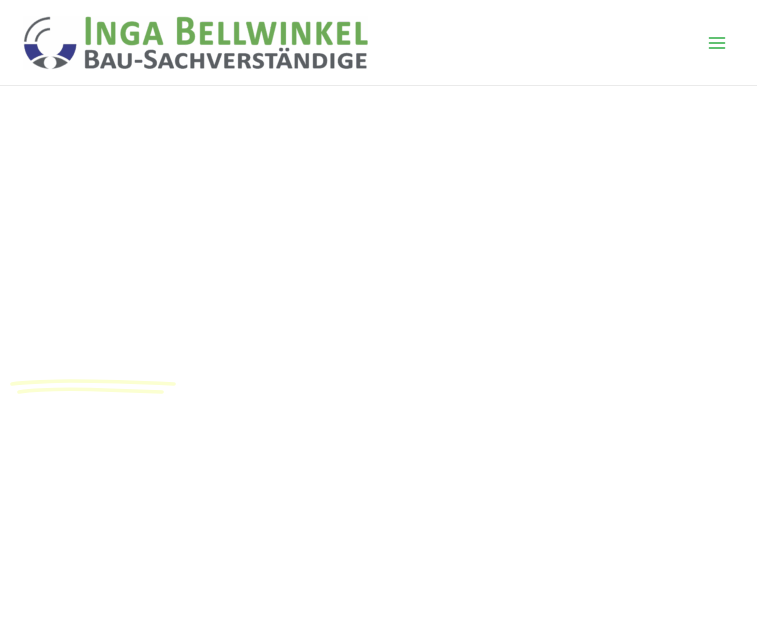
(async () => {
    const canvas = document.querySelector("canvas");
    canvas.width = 757;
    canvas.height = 626;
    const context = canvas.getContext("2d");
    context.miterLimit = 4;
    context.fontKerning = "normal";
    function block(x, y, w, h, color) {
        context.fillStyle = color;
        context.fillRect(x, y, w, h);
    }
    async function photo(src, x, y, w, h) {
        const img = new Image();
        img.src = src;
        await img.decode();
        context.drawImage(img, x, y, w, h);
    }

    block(0, 0, 757, 626, "rgb(255, 255, 255)");
    block(0, 85, 757, 1, "rgb(234, 234, 234)");
    await photo("media/1.png", 23, 16, 345, 54);
    await photo("media/2.png", 708, 37, 18, 12);
    context.beginPath();
    context.moveTo(12, 384);
    context.bezierCurveTo(22, 382.5, 57.5, 381, 70.5, 381);
    context.bezierCurveTo(109.5, 381, 154, 383, 174, 384);
    context.strokeStyle = "rgb(251, 255, 209)";
    context.lineWidth = 3.7;
    context.lineCap = "round";
    context.lineJoin = "round";
    context.stroke();
    context.beginPath();
    context.moveTo(19, 392);
    context.bezierCurveTo(42.5, 388.5, 66.5, 389, 90, 389.5);
    context.lineTo(162, 392);
    context.stroke();
})();
